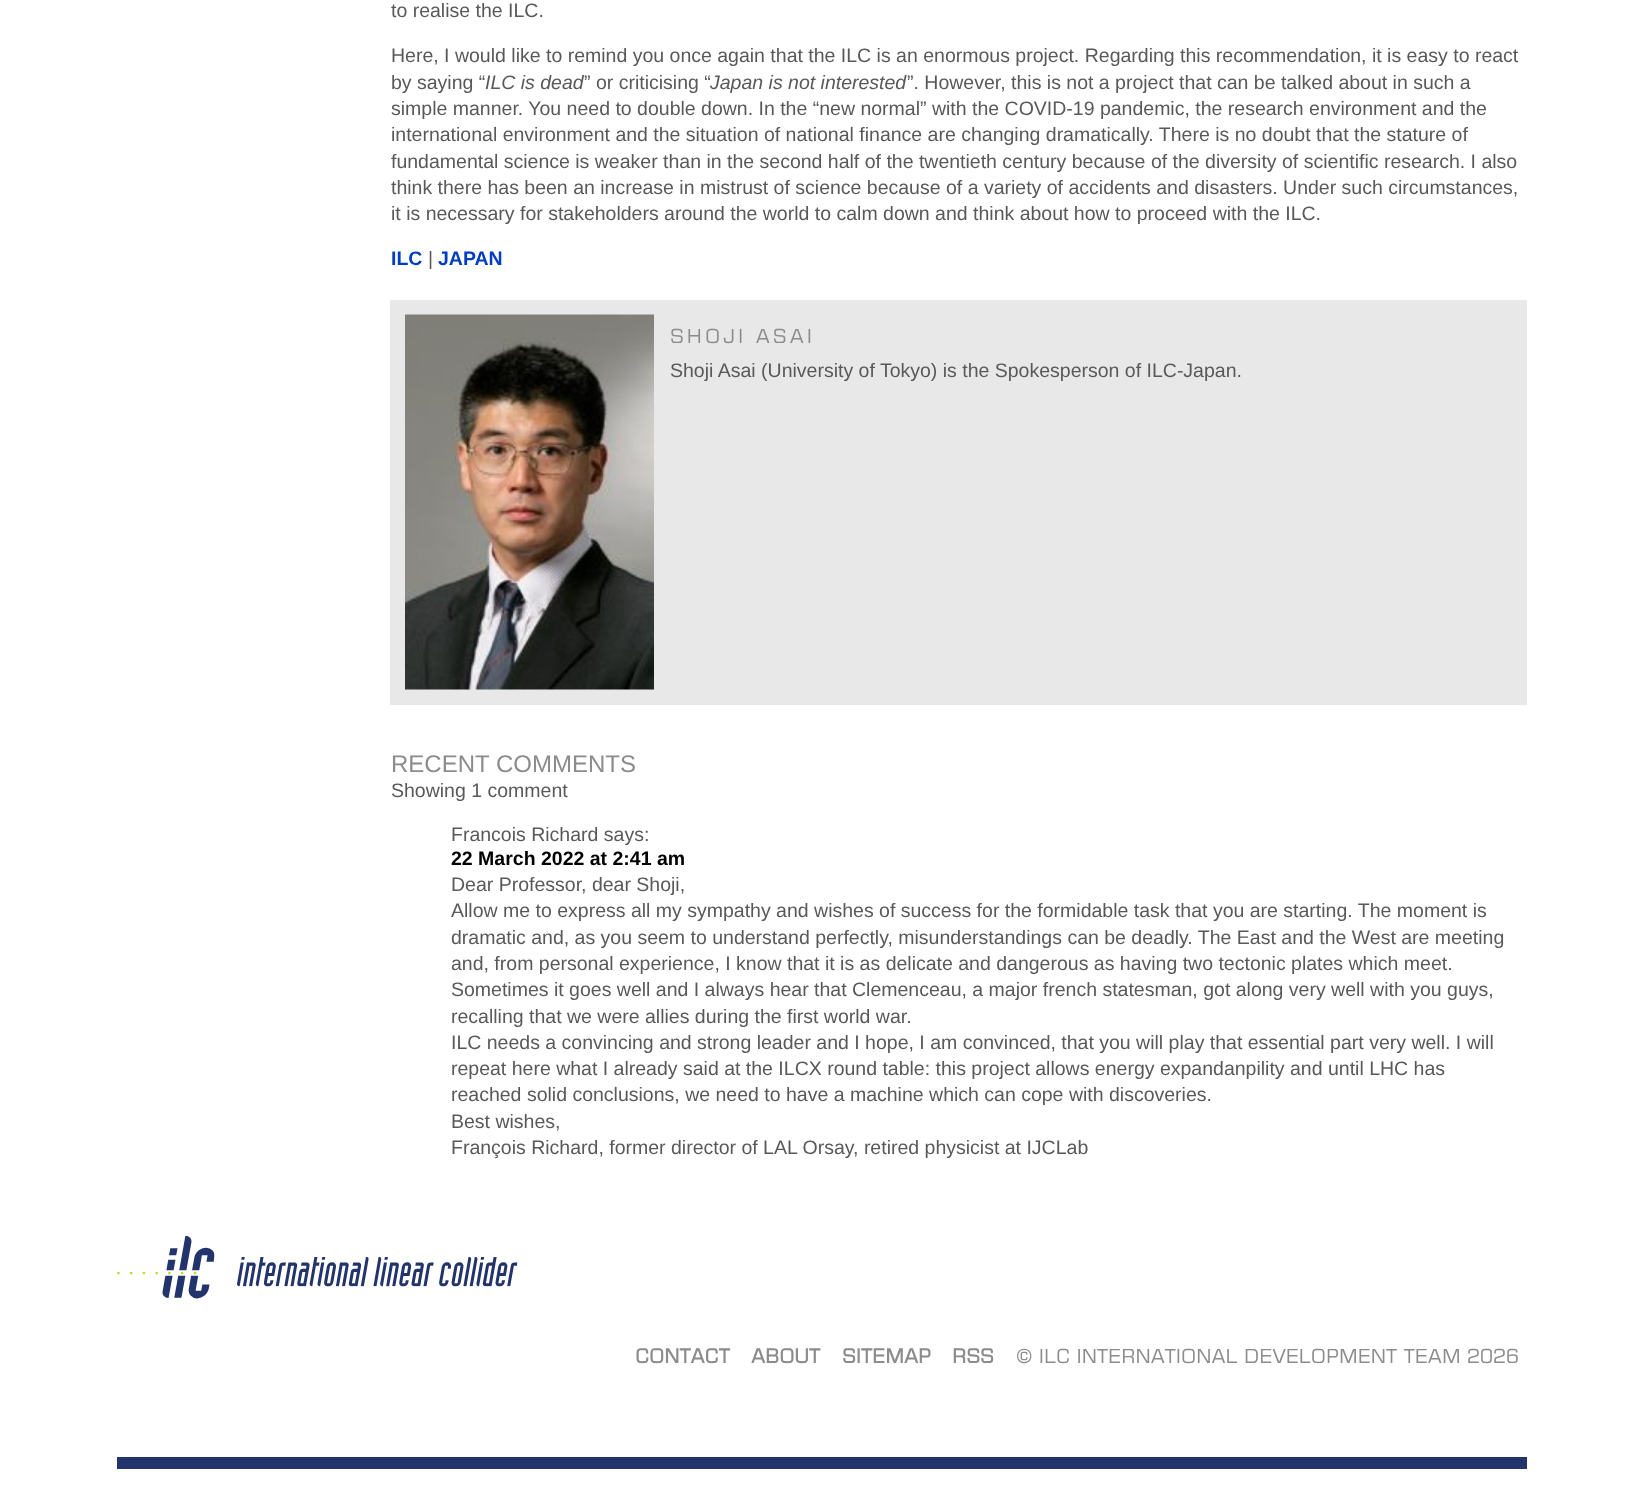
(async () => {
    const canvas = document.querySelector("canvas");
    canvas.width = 1642;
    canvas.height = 1504;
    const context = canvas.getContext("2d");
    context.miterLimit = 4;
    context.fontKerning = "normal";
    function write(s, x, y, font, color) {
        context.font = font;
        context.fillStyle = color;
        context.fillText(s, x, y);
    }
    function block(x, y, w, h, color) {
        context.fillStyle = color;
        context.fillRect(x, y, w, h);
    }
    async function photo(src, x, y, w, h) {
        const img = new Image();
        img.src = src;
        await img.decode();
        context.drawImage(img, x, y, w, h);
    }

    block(0, 0, 1642, 1504, "rgb(255, 255, 255)");
    write("to realise the ILC.", 391, 17, "19.5px Liberation Sans", "rgb(89, 89, 89)");
    write("Here, I would like to remind you once again that the ILC is an enormous project. Regarding this recommendation, it is easy to react", 391, 62, "19.5px Liberation Sans", "rgb(89, 89, 89)");
    write("by saying “", 391, 89, "19.5px Liberation Sans", "rgb(89, 89, 89)");
    write("ILC is dead", 485, 89, "italic 19.5px Liberation Sans", "rgb(89, 89, 89)");
    write("” or criticising “", 584, 89, "19.5px Liberation Sans", "rgb(89, 89, 89)");
    write("Japan is not interested", 710, 89, "italic 19.5px Liberation Sans", "rgb(89, 89, 89)");
    write("”. However, this is not a project that can be talked about in such a", 907, 89, "19.5px Liberation Sans", "rgb(89, 89, 89)");
    write("simple manner. You need to double down. In the “new normal” with the COVID-19 pandemic, the research environment and the", 391, 115, "19.5px Liberation Sans", "rgb(89, 89, 89)");
    write("international environment and the situation of national finance are changing dramatically. There is no doubt that the stature of", 391, 141, "19.5px Liberation Sans", "rgb(89, 89, 89)");
    write("fundamental science is weaker than in the second half of the twentieth century because of the diversity of scientific research. I also", 391, 168, "19.5px Liberation Sans", "rgb(89, 89, 89)");
    write("think there has been an increase in mistrust of science because of a variety of accidents and disasters. Under such circumstances,", 391, 194, "19.5px Liberation Sans", "rgb(89, 89, 89)");
    write("it is necessary for stakeholders around the world to calm down and think about how to proceed with the ILC.", 391, 220, "19.5px Liberation Sans", "rgb(89, 89, 89)");
    write("ILC", 391, 265, "bold 19.5px Liberation Sans", "rgb(0, 61, 194)");
    write("|", 428, 265, "19.5px Liberation Sans", "rgb(89, 89, 89)");
    write("JAPAN", 438, 265, "bold 19.5px Liberation Sans", "rgb(0, 61, 194)");
    block(390, 300, 1137, 405, "rgb(232, 232, 232)");
    await photo("media/1.png", 405, 314, 249, 376);
    context.letterSpacing = "3px";
    write("SHOJI ASAI", 670, 343, "19.5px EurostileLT", "rgb(140, 140, 140)");
    context.letterSpacing = "0px";
    write("Shoji Asai (University of Tokyo) is the Spokesperson of ILC-Japan.", 670, 377, "19.5px Liberation Sans", "rgb(89, 89, 89)");
    write("RECENT COMMENTS", 391, 772, "24px Liberation Sans", "rgb(140, 140, 140)");
    write("Showing 1 comment", 391, 797, "19.5px Liberation Sans", "rgb(89, 89, 89)");
    write("Francois Richard says:", 451, 841, "19.5px Liberation Sans", "rgb(89, 89, 89)");
    write("22 March 2022 at 2:41 am", 451, 865, "bold 19.5px Liberation Sans", "rgb(0, 0, 0)");
    write("Dear Professor, dear Shoji,", 451, 891, "19.5px Liberation Sans", "rgb(89, 89, 89)");
    write("Allow me to express all my sympathy and wishes of success for the formidable task that you are starting. The moment is", 451, 917, "19.5px Liberation Sans", "rgb(89, 89, 89)");
    write("dramatic and, as you seem to understand perfectly, misunderstandings can be deadly. The East and the West are meeting", 451, 944, "19.5px Liberation Sans", "rgb(89, 89, 89)");
    write("and, from personal experience, I know that it is as delicate and dangerous as having two tectonic plates which meet.", 451, 970, "19.5px Liberation Sans", "rgb(89, 89, 89)");
    write("Sometimes it goes well and I always hear that Clemenceau, a major french statesman, got along very well with you guys,", 451, 996, "19.5px Liberation Sans", "rgb(89, 89, 89)");
    write("recalling that we were allies during the first world war.", 451, 1023, "19.5px Liberation Sans", "rgb(89, 89, 89)");
    write("ILC needs a convincing and strong leader and I hope, I am convinced, that you will play that essential part very well. I will", 451, 1049, "19.5px Liberation Sans", "rgb(89, 89, 89)");
    write("repeat here what I already said at the ILCX round table: this project allows energy expandanpility and until LHC has", 451, 1075, "19.5px Liberation Sans", "rgb(89, 89, 89)");
    write("reached solid conclusions, we need to have a machine which can cope with discoveries.", 451, 1101, "19.5px Liberation Sans", "rgb(89, 89, 89)");
    write("Best wishes,", 451, 1128, "19.5px Liberation Sans", "rgb(89, 89, 89)");
    write("François Richard, former director of LAL Orsay, retired physicist at IJCLab", 451, 1154, "19.5px Liberation Sans", "rgb(89, 89, 89)");
    block(117, 1457, 1410, 12, "rgb(35, 52, 108)");
    await photo("media/2.png", 117, 1235, 98, 64);
    await photo("media/3.png", 237, 1257, 281, 30);
    write("CONTACT", 635, 1363, "bold 19.5px EurostileLT", "rgb(140, 140, 140)");
    write("ABOUT", 751, 1363, "bold 19.5px EurostileLT", "rgb(140, 140, 140)");
    write("SITEMAP", 842, 1363, "bold 19.5px EurostileLT", "rgb(140, 140, 140)");
    write("RSS", 952, 1363, "bold 19.5px EurostileLT", "rgb(140, 140, 140)");
    write("© ILC INTERNATIONAL DEVELOPMENT TEAM 2026", 1016, 1363, "19.5px EurostileLT", "rgb(140, 140, 140)");
})();
